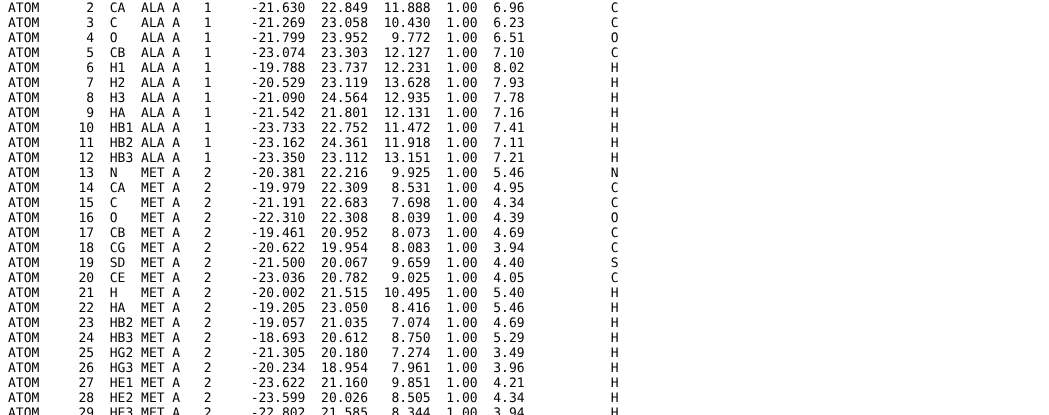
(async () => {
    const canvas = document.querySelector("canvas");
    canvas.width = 1049;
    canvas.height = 415;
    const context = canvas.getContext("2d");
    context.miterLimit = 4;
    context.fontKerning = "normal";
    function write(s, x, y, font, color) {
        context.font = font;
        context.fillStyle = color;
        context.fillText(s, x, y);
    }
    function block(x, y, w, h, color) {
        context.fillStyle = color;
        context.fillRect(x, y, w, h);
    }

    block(0, 0, 1049, 415, "rgb(255, 255, 255)");
    write("ATOM      2  CA  ALA A   1     -21.630  22.849  11.888  1.00  6.96           C", 8, 12, "13px DejaVu Sans Mono", "rgb(0, 0, 0)");
    write("ATOM      3  C   ALA A   1     -21.269  23.058  10.430  1.00  6.23           C", 8, 27, "13px DejaVu Sans Mono", "rgb(0, 0, 0)");
    write("ATOM      4  O   ALA A   1     -21.799  23.952   9.772  1.00  6.51           O", 8, 42, "13px DejaVu Sans Mono", "rgb(0, 0, 0)");
    write("ATOM      5  CB  ALA A   1     -23.074  23.303  12.127  1.00  7.10           C", 8, 57, "13px DejaVu Sans Mono", "rgb(0, 0, 0)");
    write("ATOM      6  H1  ALA A   1     -19.788  23.737  12.231  1.00  8.02           H", 8, 72, "13px DejaVu Sans Mono", "rgb(0, 0, 0)");
    write("ATOM      7  H2  ALA A   1     -20.529  23.119  13.628  1.00  7.93           H", 8, 87, "13px DejaVu Sans Mono", "rgb(0, 0, 0)");
    write("ATOM      8  H3  ALA A   1     -21.090  24.564  12.935  1.00  7.78           H", 8, 102, "13px DejaVu Sans Mono", "rgb(0, 0, 0)");
    write("ATOM      9  HA  ALA A   1     -21.542  21.801  12.131  1.00  7.16           H", 8, 117, "13px DejaVu Sans Mono", "rgb(0, 0, 0)");
    write("ATOM     10  HB1 ALA A   1     -23.733  22.752  11.472  1.00  7.41           H", 8, 132, "13px DejaVu Sans Mono", "rgb(0, 0, 0)");
    write("ATOM     11  HB2 ALA A   1     -23.162  24.361  11.918  1.00  7.11           H", 8, 147, "13px DejaVu Sans Mono", "rgb(0, 0, 0)");
    write("ATOM     12  HB3 ALA A   1     -23.350  23.112  13.151  1.00  7.21           H", 8, 162, "13px DejaVu Sans Mono", "rgb(0, 0, 0)");
    write("ATOM     13  N   MET A   2     -20.381  22.216   9.925  1.00  5.46           N", 8, 177, "13px DejaVu Sans Mono", "rgb(0, 0, 0)");
    write("ATOM     14  CA  MET A   2     -19.979  22.309   8.531  1.00  4.95           C", 8, 192, "13px DejaVu Sans Mono", "rgb(0, 0, 0)");
    write("ATOM     15  C   MET A   2     -21.191  22.683   7.698  1.00  4.34           C", 8, 207, "13px DejaVu Sans Mono", "rgb(0, 0, 0)");
    write("ATOM     16  O   MET A   2     -22.310  22.308   8.039  1.00  4.39           O", 8, 222, "13px DejaVu Sans Mono", "rgb(0, 0, 0)");
    write("ATOM     17  CB  MET A   2     -19.461  20.952   8.073  1.00  4.69           C", 8, 237, "13px DejaVu Sans Mono", "rgb(0, 0, 0)");
    write("ATOM     18  CG  MET A   2     -20.622  19.954   8.083  1.00  3.94           C", 8, 252, "13px DejaVu Sans Mono", "rgb(0, 0, 0)");
    write("ATOM     19  SD  MET A   2     -21.500  20.067   9.659  1.00  4.40           S", 8, 267, "13px DejaVu Sans Mono", "rgb(0, 0, 0)");
    write("ATOM     20  CE  MET A   2     -23.036  20.782   9.025  1.00  4.05           C", 8, 282, "13px DejaVu Sans Mono", "rgb(0, 0, 0)");
    write("ATOM     21  H   MET A   2     -20.002  21.515  10.495  1.00  5.40           H", 8, 297, "13px DejaVu Sans Mono", "rgb(0, 0, 0)");
    write("ATOM     22  HA  MET A   2     -19.205  23.050   8.416  1.00  5.46           H", 8, 312, "13px DejaVu Sans Mono", "rgb(0, 0, 0)");
    write("ATOM     23  HB2 MET A   2     -19.057  21.035   7.074  1.00  4.69           H", 8, 327, "13px DejaVu Sans Mono", "rgb(0, 0, 0)");
    write("ATOM     24  HB3 MET A   2     -18.693  20.612   8.750  1.00  5.29           H", 8, 342, "13px DejaVu Sans Mono", "rgb(0, 0, 0)");
    write("ATOM     25  HG2 MET A   2     -21.305  20.180   7.274  1.00  3.49           H", 8, 357, "13px DejaVu Sans Mono", "rgb(0, 0, 0)");
    write("ATOM     26  HG3 MET A   2     -20.234  18.954   7.961  1.00  3.96           H", 8, 372, "13px DejaVu Sans Mono", "rgb(0, 0, 0)");
    write("ATOM     27  HE1 MET A   2     -23.622  21.160   9.851  1.00  4.21           H", 8, 387, "13px DejaVu Sans Mono", "rgb(0, 0, 0)");
    write("ATOM     28  HE2 MET A   2     -23.599  20.026   8.505  1.00  4.34           H", 8, 402, "13px DejaVu Sans Mono", "rgb(0, 0, 0)");
    write("ATOM     29  HE3 MET A   2     -22.802  21.585   8.344  1.00  3.94           H", 8, 417, "13px DejaVu Sans Mono", "rgb(0, 0, 0)");
})();
